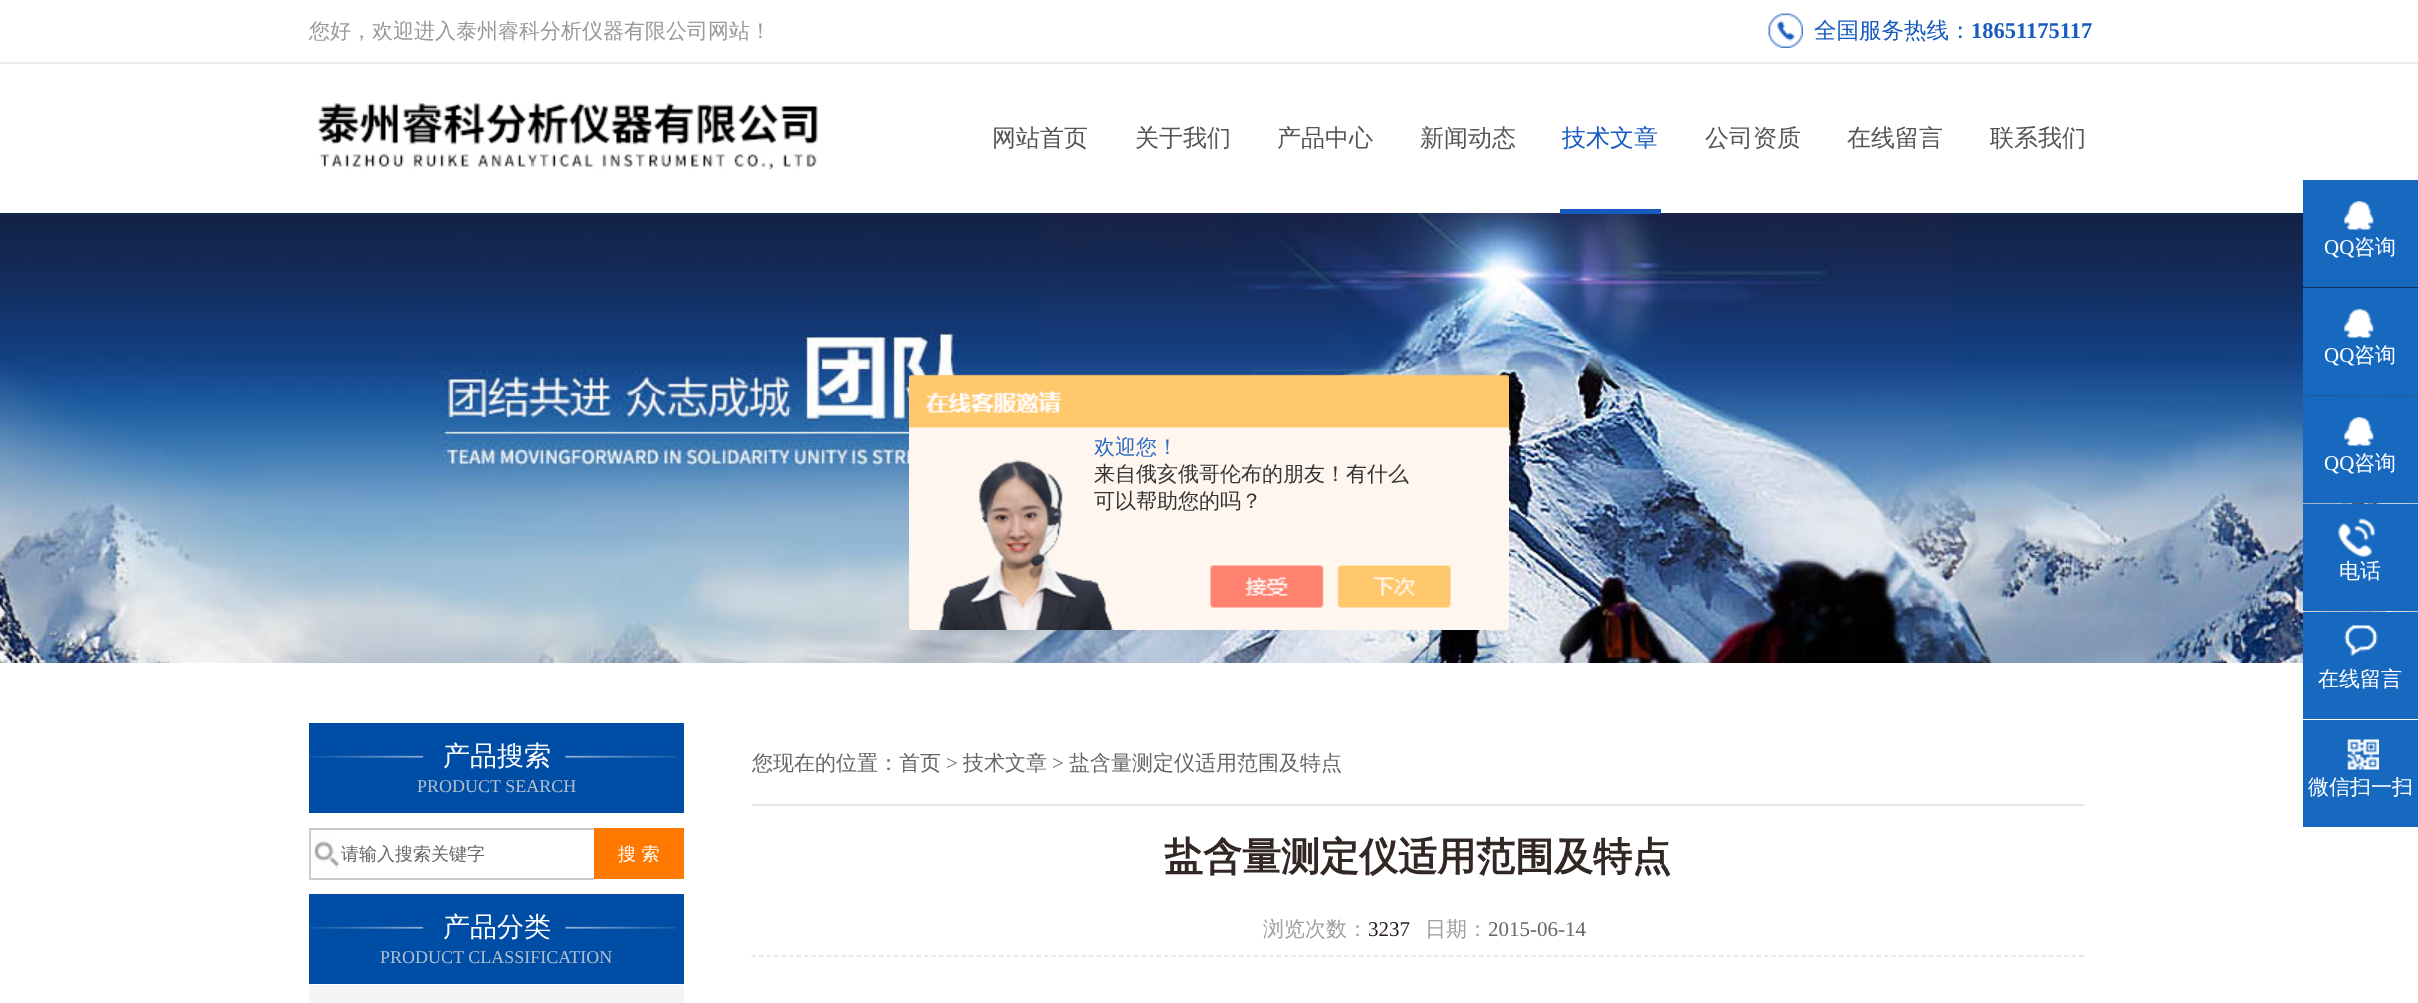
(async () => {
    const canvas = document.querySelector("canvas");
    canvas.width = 2418;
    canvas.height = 1003;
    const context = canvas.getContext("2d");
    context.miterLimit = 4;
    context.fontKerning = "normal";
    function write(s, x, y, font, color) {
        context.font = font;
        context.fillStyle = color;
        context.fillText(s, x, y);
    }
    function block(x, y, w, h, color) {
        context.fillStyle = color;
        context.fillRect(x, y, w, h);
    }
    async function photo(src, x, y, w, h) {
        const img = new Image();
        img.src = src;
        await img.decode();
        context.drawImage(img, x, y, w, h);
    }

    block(0, 0, 2418, 1003, "rgb(255, 255, 255)");
    block(0, 62, 2418, 2, "rgb(235, 235, 235)");
    write("您好，欢迎进入泰州睿科分析仪器有限公司网站！", 309, 38, "500 21px WenQuanYi Zen Hei", "rgb(153, 153, 153)");
    await photo("media/1.png", 1768, 13, 35, 35);
    write("全国服务热线：", 1814, 38, "500 22.5px WenQuanYi Zen Hei", "rgb(23, 91, 192)");
    write("18651175117", 1971, 38, "bold 22.5px Liberation Serif", "rgb(23, 91, 192)");
    await photo("media/2.png", 317, 103, 501, 67);
    write("网站首页", 992, 146, "500 24px WenQuanYi Zen Hei", "rgb(85, 85, 85)");
    write("关于我们", 1135, 146, "500 24px WenQuanYi Zen Hei", "rgb(85, 85, 85)");
    write("产品中心", 1277, 146, "500 24px WenQuanYi Zen Hei", "rgb(85, 85, 85)");
    write("新闻动态", 1420, 146, "500 24px WenQuanYi Zen Hei", "rgb(85, 85, 85)");
    write("技术文章", 1562, 146, "500 24px WenQuanYi Zen Hei", "rgb(23, 91, 192)");
    await photo("media/3.png", 0, 213, 2418, 450);
    block(1560, 209, 101, 5, "rgb(23, 91, 192)");
    write("公司资质", 1705, 146, "500 24px WenQuanYi Zen Hei", "rgb(85, 85, 85)");
    write("在线留言", 1847, 146, "500 24px WenQuanYi Zen Hei", "rgb(85, 85, 85)");
    write("联系我们", 1990, 146, "500 24px WenQuanYi Zen Hei", "rgb(85, 85, 85)");
    await photo("media/4.png", 909, 374, 600, 256);
    write("欢迎您！", 1094, 454, "500 21px WenQuanYi Zen Hei", "rgb(46, 110, 198)");
    write("来自俄亥俄哥伦布的朋友！有什么", 1094, 481, "500 21px WenQuanYi Zen Hei", "rgb(51, 51, 51)");
    write("可以帮助您的吗？", 1094, 508, "500 21px WenQuanYi Zen Hei", "rgb(51, 51, 51)");
    block(2303, 180, 115, 107, "rgb(23, 105, 192)");
    await photo("media/5.png", 2344, 201, 30, 29);
    write("QQ", 2324, 254, "21px Liberation Serif", "rgb(255, 255, 255)");
    write("咨询", 2354, 254, "500 21px WenQuanYi Zen Hei", "rgb(255, 255, 255)");
    block(2303, 288, 115, 107, "rgb(23, 105, 192)");
    await photo("media/5.png", 2344, 309, 30, 29);
    write("QQ", 2324, 362, "21px Liberation Serif", "rgb(255, 255, 255)");
    write("咨询", 2354, 362, "500 21px WenQuanYi Zen Hei", "rgb(255, 255, 255)");
    block(2303, 396, 115, 107, "rgb(23, 105, 192)");
    await photo("media/5.png", 2344, 417, 30, 29);
    write("QQ", 2324, 470, "21px Liberation Serif", "rgb(255, 255, 255)");
    write("咨询", 2354, 470, "500 21px WenQuanYi Zen Hei", "rgb(255, 255, 255)");
    block(2303, 504, 115, 107, "rgb(23, 105, 192)");
    await photo("media/6.png", 2338, 518, 37, 39);
    write("电话", 2339, 578, "500 21px WenQuanYi Zen Hei", "rgb(255, 255, 255)");
    block(2303, 612, 115, 107, "rgb(23, 105, 192)");
    await photo("media/7.png", 2344, 625, 34, 32);
    write("在线留言", 2318, 686, "500 21px WenQuanYi Zen Hei", "rgb(255, 255, 255)");
    block(2303, 720, 115, 107, "rgb(23, 105, 192)");
    await photo("media/8.png", 2347, 739, 32, 31);
    write("微信扫一扫", 2308, 794, "500 21px WenQuanYi Zen Hei", "rgb(255, 255, 255)");
    await photo("media/9.png", 309, 723, 375, 90);
    write("产品搜索", 443, 765, "500 27px WenQuanYi Zen Hei", "rgb(255, 255, 255)");
    write("PRODUCT SEARCH", 417, 792, "18px Liberation Serif", "rgb(176, 191, 208)");
    await photo("media/10.png", 314, 838, 26, 31);
    block(309, 828, 285, 2, "rgb(204, 204, 204)");
    block(309, 878, 285, 2, "rgb(204, 204, 204)");
    block(309, 828, 2, 51, "rgb(204, 204, 204)");
    write("请输入搜索关键字", 341, 860, "500 18px WenQuanYi Zen Hei", "rgb(102, 102, 102)");
    block(594, 828, 90, 51, "rgb(255, 120, 0)");
    write("搜 索", 618, 860, "500 18px WenQuanYi Zen Hei", "rgb(255, 255, 255)");
    await photo("media/9.png", 309, 894, 375, 90);
    write("产品分类", 443, 936, "500 27px WenQuanYi Zen Hei", "rgb(255, 255, 255)");
    write("PRODUCT CLASSIFICATION", 380, 963, "18px Liberation Serif", "rgb(176, 191, 208)");
    block(309, 985, 375, 18, "rgb(244, 244, 244)");
    block(752, 804, 1332, 2, "rgb(230, 230, 230)");
    write("您现在的位置：首页", 752, 770, "500 21px WenQuanYi Zen Hei", "rgb(102, 102, 102)");
    write(">", 946, 770, "21px Liberation Serif", "rgb(102, 102, 102)");
    write("技术文章", 963, 770, "500 21px WenQuanYi Zen Hei", "rgb(102, 102, 102)");
    write(">", 1052, 770, "21px Liberation Serif", "rgb(102, 102, 102)");
    write("盐含量测定仪适用范围及特点", 1069, 770, "500 21px WenQuanYi Zen Hei", "rgb(102, 102, 102)");
    write("盐含量测定仪适用范围及特点", 1164, 870, "bold 39px WenQuanYi Zen Hei", "rgb(50, 39, 37)");
    context.beginPath();
    context.moveTo(751.5, 956);
    context.lineTo(2083.5, 956);
    context.strokeStyle = "rgb(224, 224, 224)";
    context.lineWidth = 1.5;
    context.setLineDash([4.5, 3]);
    context.stroke();
    write("浏览次数：", 1263, 936, "500 21px WenQuanYi Zen Hei", "rgb(159, 160, 160)");
    write("3237", 1368, 936, "21px Liberation Serif", "rgb(35, 24, 21)");
    write("日期：", 1425, 936, "500 21px WenQuanYi Zen Hei", "rgb(159, 160, 160)");
    write("2015-06-14", 1488, 936, "21px Liberation Serif", "rgb(102, 102, 102)");
})();
